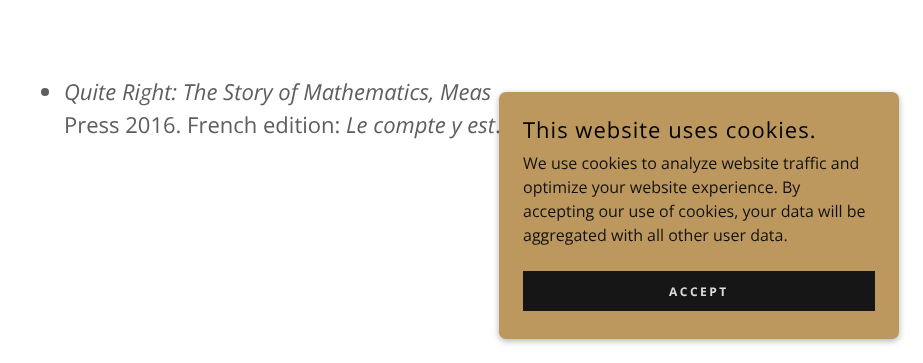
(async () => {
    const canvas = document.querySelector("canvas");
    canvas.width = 923;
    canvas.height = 363;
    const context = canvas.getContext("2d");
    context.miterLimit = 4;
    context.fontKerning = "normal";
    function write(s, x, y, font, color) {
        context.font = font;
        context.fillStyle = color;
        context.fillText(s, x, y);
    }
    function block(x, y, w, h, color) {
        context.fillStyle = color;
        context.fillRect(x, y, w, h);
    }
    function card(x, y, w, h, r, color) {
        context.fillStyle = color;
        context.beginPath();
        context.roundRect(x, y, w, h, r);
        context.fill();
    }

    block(0, 0, 923, 363, "rgb(255, 255, 255)");
    context.fillStyle = "rgb(94, 94, 94)";
    context.beginPath();
    context.arc(45, 92, 4, 0, Math.PI * 2);
    context.fill();
    write("Quite Right: The Story of Mathematics, Meas", 64, 100, "italic 22px Open Sans", "rgb(94, 94, 94)");
    write("Press 2016. French edition:", 64, 133, "22px Open Sans", "rgb(94, 94, 94)");
    write("Le compte y est", 346, 133, "italic 22px Open Sans", "rgb(94, 94, 94)");
    write(".", 495, 133, "22px Open Sans", "rgb(94, 94, 94)");
    context.fillStyle = "rgba(0, 0, 0, 0.3)";
    context.filter = "blur(3px)";
    context.beginPath();
    context.roundRect(499, 94, 400, 247, 7);
    context.fill();
    context.filter = "none";
    card(499, 92, 400, 247, 7, "rgb(189, 152, 94)");
    context.letterSpacing = "1px";
    write("This website uses cookies.", 523, 138, "22px Open Sans", "rgb(0, 0, 0)");
    context.letterSpacing = "0px";
    write("We use cookies to analyze website traffic and", 523, 169, "16px Open Sans", "rgb(17, 17, 16)");
    write("optimize your website experience. By", 523, 193, "16px Open Sans", "rgb(17, 17, 16)");
    write("accepting our use of cookies, your data will be", 523, 217, "16px Open Sans", "rgb(17, 17, 16)");
    write("aggregated with all other user data.", 523, 241, "16px Open Sans", "rgb(17, 17, 16)");
    block(523, 271, 352, 40, "rgb(22, 22, 22)");
    context.letterSpacing = "2.5px";
    write("ACCEPT", 669, 296, "bold 12px Open Sans", "rgb(219, 219, 219)");
})();
